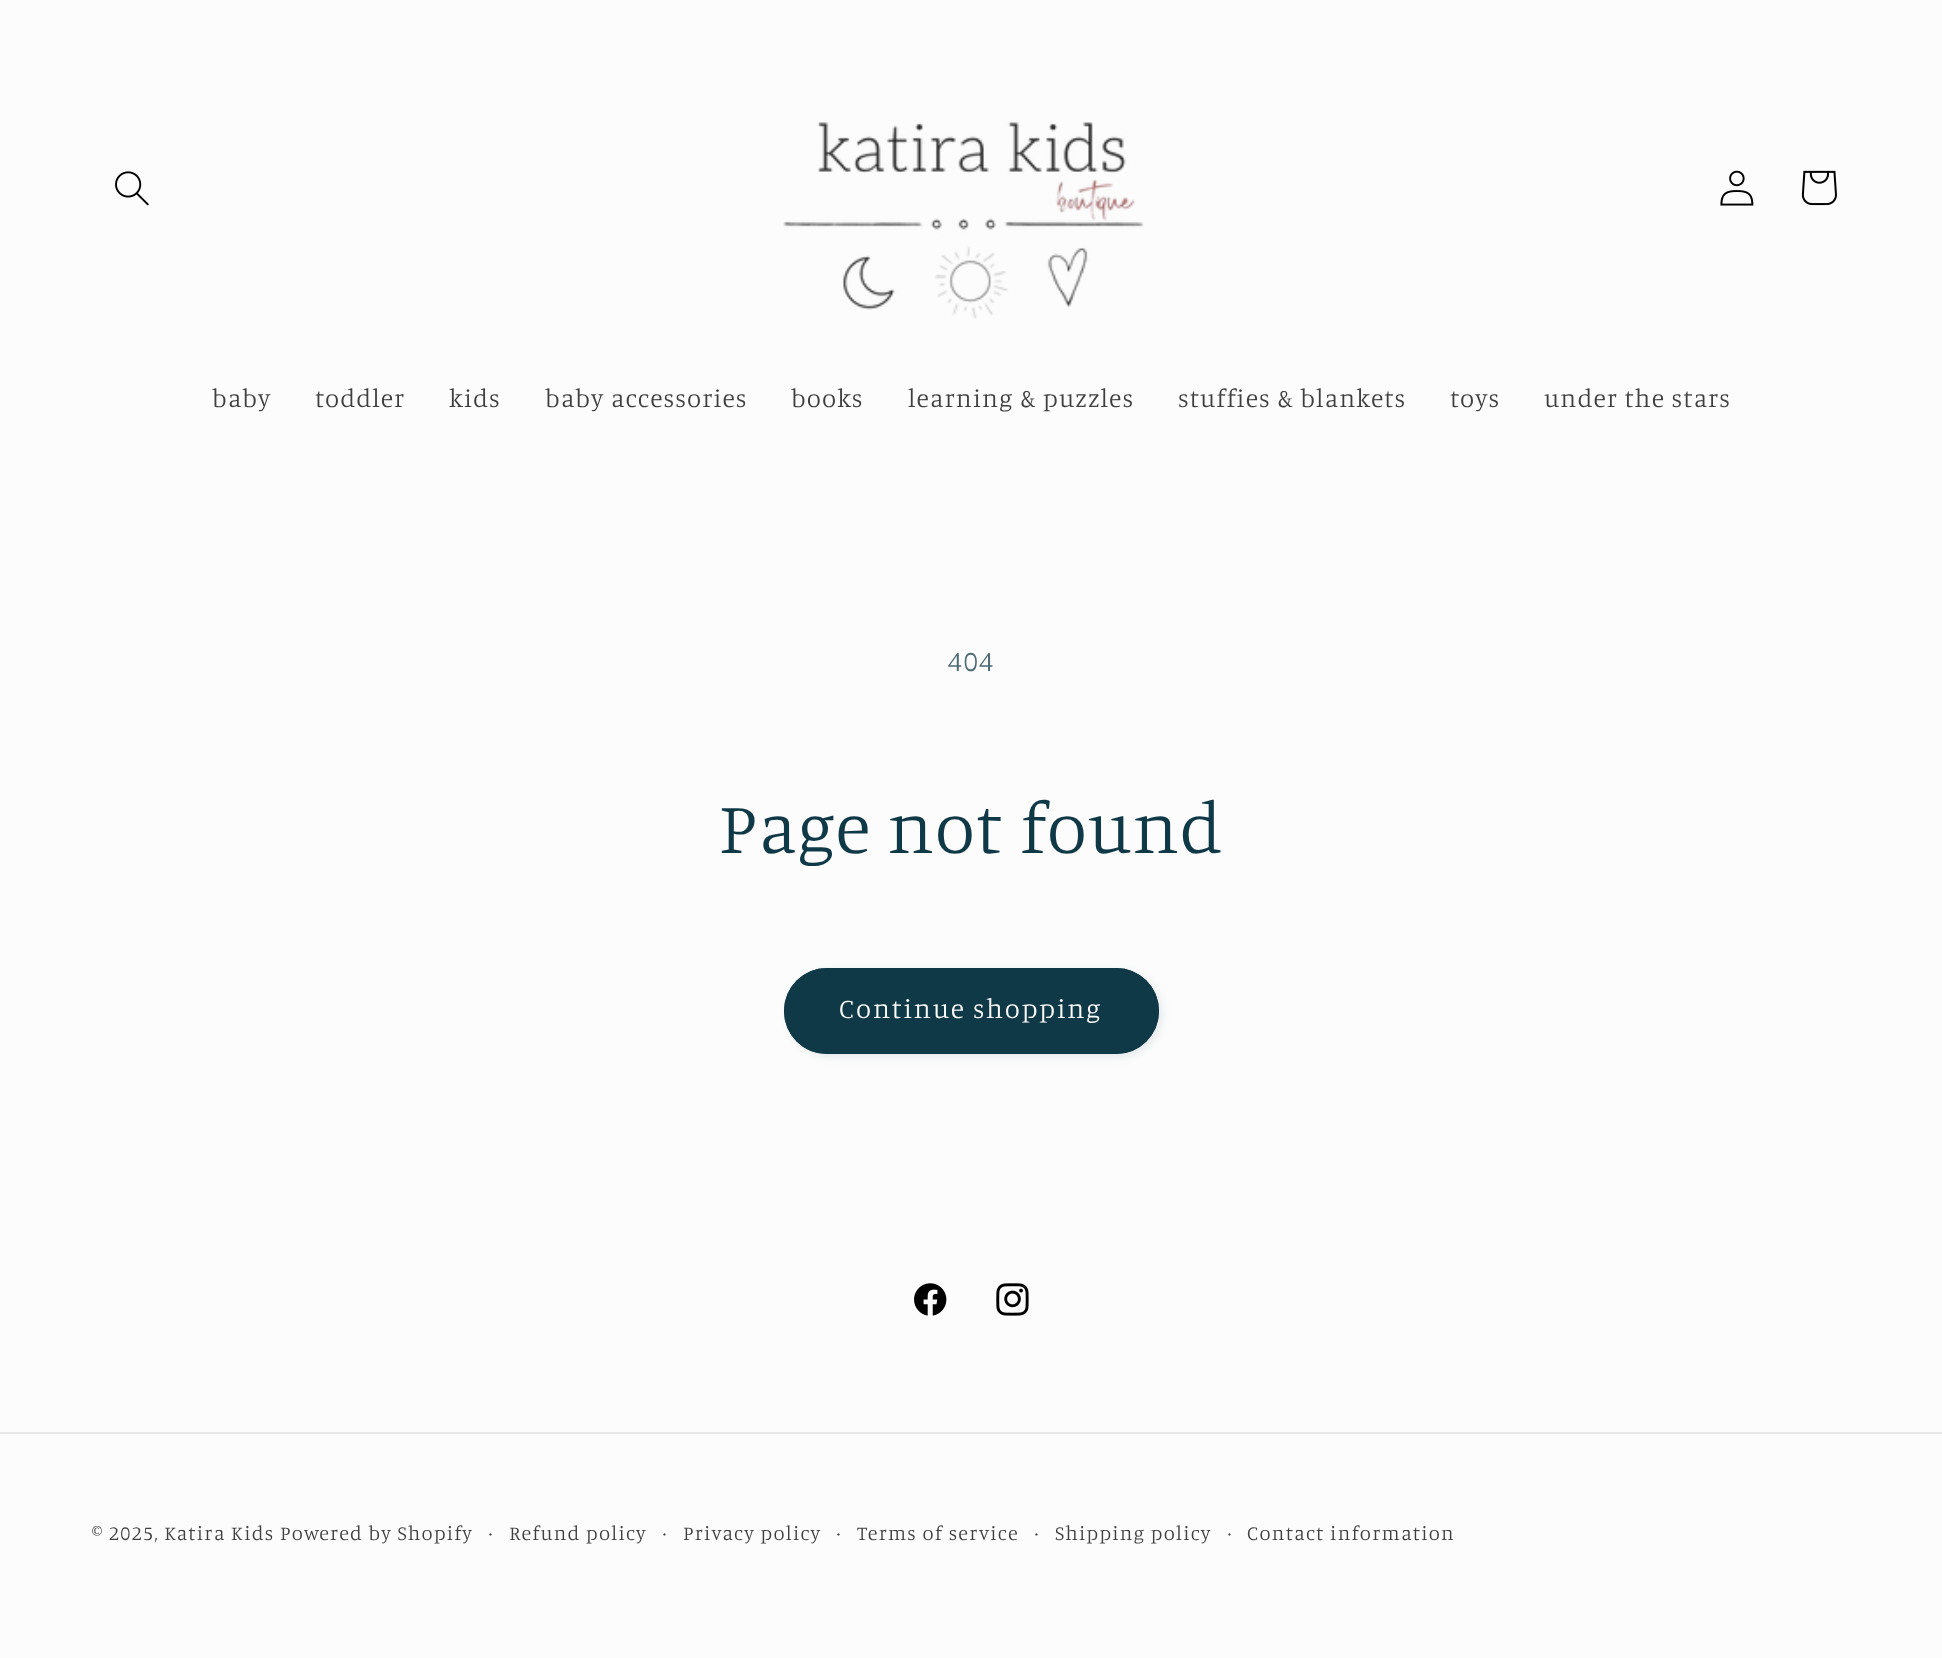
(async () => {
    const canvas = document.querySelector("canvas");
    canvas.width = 1942;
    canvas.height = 1658;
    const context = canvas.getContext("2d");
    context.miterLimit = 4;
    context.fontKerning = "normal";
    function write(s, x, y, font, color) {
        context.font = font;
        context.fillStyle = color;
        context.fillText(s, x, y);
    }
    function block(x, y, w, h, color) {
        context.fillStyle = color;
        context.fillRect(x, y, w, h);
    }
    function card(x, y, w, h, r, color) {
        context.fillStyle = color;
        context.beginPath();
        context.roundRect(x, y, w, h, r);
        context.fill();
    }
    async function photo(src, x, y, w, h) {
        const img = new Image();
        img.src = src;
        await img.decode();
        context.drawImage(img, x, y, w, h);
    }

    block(0, 0, 1942, 1658, "rgb(252, 252, 252)");
    await photo("media/1.png", 115, 171, 34, 35);
    await photo("media/2.png", 783, 122, 361, 197);
    await photo("media/3.png", 1720, 170, 34, 36);
    await photo("media/4.png", 1801, 170, 36, 36);
    context.letterSpacing = "1.1px";
    write("baby", 212, 407, "300 25.75px Manuale", "rgb(63, 63, 63)");
    write("toddler", 315, 407, "300 25.75px Manuale", "rgb(63, 63, 63)");
    write("kids", 449, 407, "300 25.75px Manuale", "rgb(63, 63, 63)");
    write("baby accessories", 545, 407, "300 25.75px Manuale", "rgb(63, 63, 63)");
    write("books", 791, 407, "300 25.75px Manuale", "rgb(63, 63, 63)");
    write("learning & puzzles", 908, 407, "300 25.75px Manuale", "rgb(63, 63, 63)");
    write("stuffies & blankets", 1178, 407, "300 25.75px Manuale", "rgb(63, 63, 63)");
    write("toys", 1450, 407, "300 25.75px Manuale", "rgb(63, 63, 63)");
    write("under the stars", 1544, 407, "300 25.75px Manuale", "rgb(63, 63, 63)");
    write("404", 948, 671, "300 29px Manuale", "rgb(75, 106, 117)");
    write("Page not found", 719, 853, "300 73.5px Manuale", "rgb(16, 57, 72)");
    context.fillStyle = "rgba(16, 57, 72, 0.1)";
    context.filter = "blur(4.5px)";
    context.beginPath();
    context.roundRect(788, 971, 374, 86, 43);
    context.fill();
    context.filter = "none";
    card(784, 968, 375, 86, 43, "rgb(16, 57, 72)");
    context.beginPath();
    context.roundRect(785, 969, 373, 84, 42);
    context.strokeStyle = "rgb(16, 57, 72)";
    context.lineWidth = 2;
    context.stroke();
    context.letterSpacing = "1.8px";
    write("Continue shopping", 839, 1018, "300 27.5px Manuale", "rgb(252, 252, 252)");
    await photo("media/5.png", 914, 1283, 33, 33);
    await photo("media/6.png", 996, 1283, 33, 33);
    block(0, 1432, 1942, 2, "rgb(232, 232, 232)");
    context.letterSpacing = "1.25px";
    write("© 2025, Katira Kids", 92, 1540, "300 20.25px Manuale", "rgb(63, 63, 63)");
    write("Powered by Shopify", 280, 1540, "300 20.25px Manuale", "rgb(63, 63, 63)");
    write("·", 488, 1540, "300 22px Manuale", "rgb(63, 63, 63)");
    write("Refund policy", 509, 1540, "300 20.25px Manuale", "rgb(63, 63, 63)");
    write("·", 662, 1540, "300 22px Manuale", "rgb(63, 63, 63)");
    write("Privacy policy", 683, 1540, "300 20.25px Manuale", "rgb(63, 63, 63)");
    write("·", 836, 1540, "300 22px Manuale", "rgb(63, 63, 63)");
    write("Terms of service", 857, 1540, "300 20.25px Manuale", "rgb(63, 63, 63)");
    write("·", 1034, 1540, "300 22px Manuale", "rgb(63, 63, 63)");
    write("Shipping policy", 1055, 1540, "300 20.25px Manuale", "rgb(63, 63, 63)");
    write("·", 1227, 1540, "300 22px Manuale", "rgb(63, 63, 63)");
    write("Contact information", 1247, 1540, "300 20.25px Manuale", "rgb(63, 63, 63)");
})();
